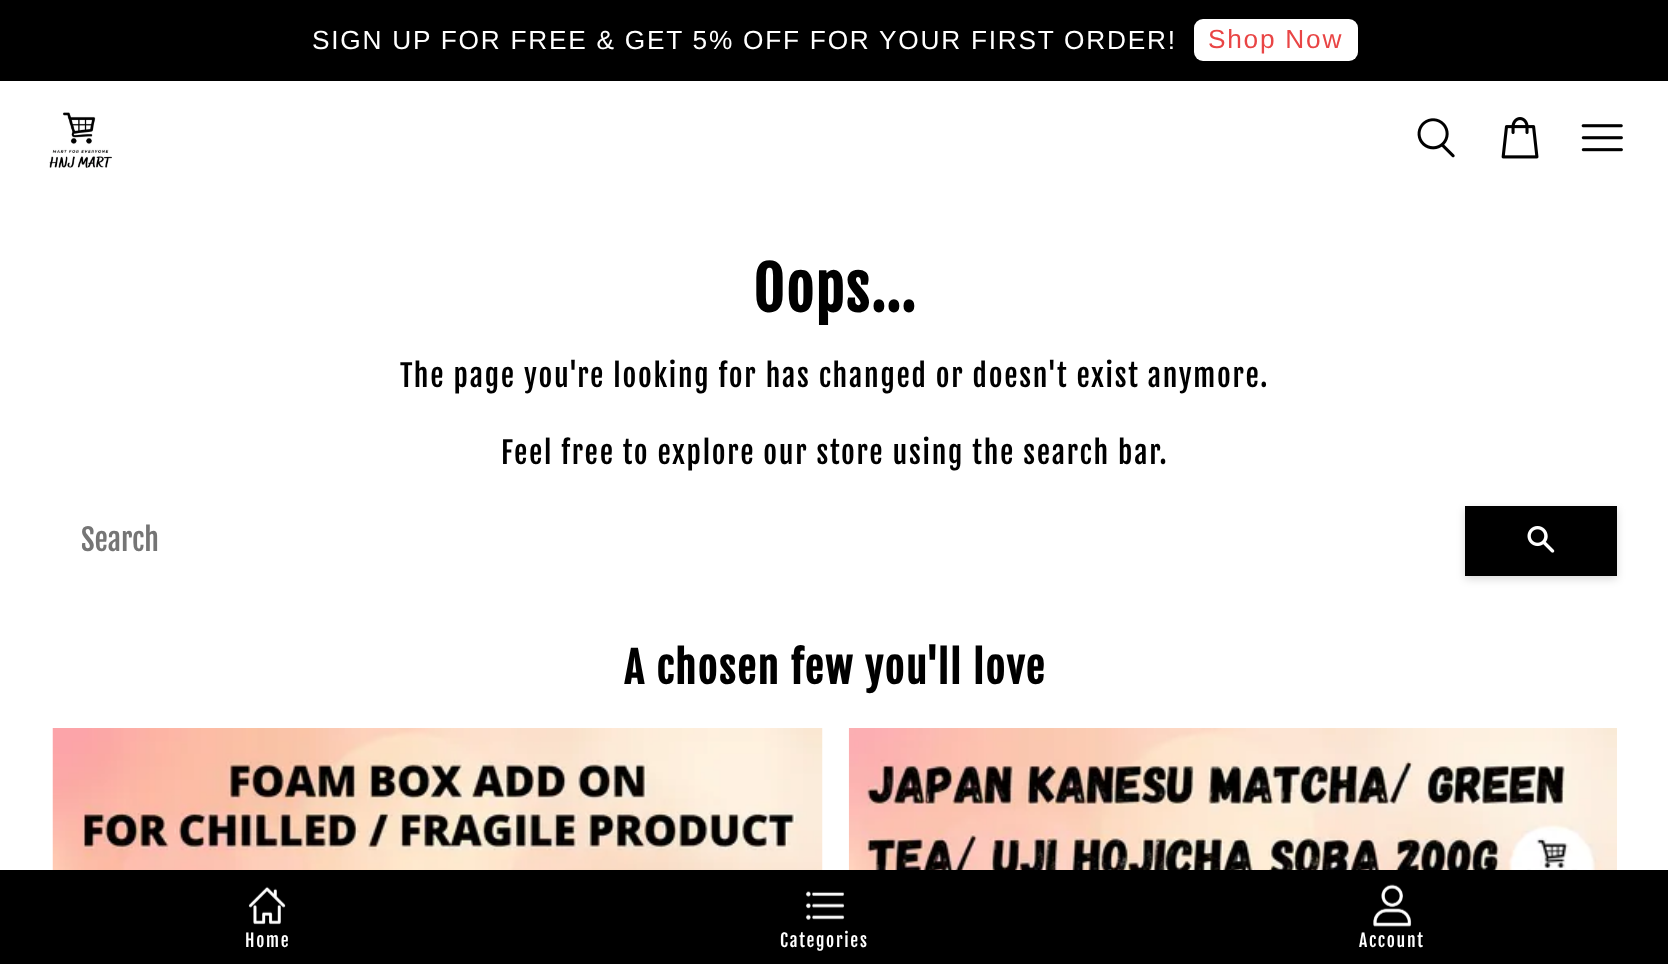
(async () => {
    const canvas = document.querySelector("canvas");
    canvas.width = 1668;
    canvas.height = 964;
    const context = canvas.getContext("2d");
    context.miterLimit = 4;
    context.fontKerning = "normal";
    function write(s, x, y, font, color) {
        context.font = font;
        context.fillStyle = color;
        context.fillText(s, x, y);
    }
    function block(x, y, w, h, color) {
        context.fillStyle = color;
        context.fillRect(x, y, w, h);
    }
    function card(x, y, w, h, r, color) {
        context.fillStyle = color;
        context.beginPath();
        context.roundRect(x, y, w, h, r);
        context.fill();
    }
    async function photo(src, x, y, w, h) {
        const img = new Image();
        img.src = src;
        await img.decode();
        context.drawImage(img, x, y, w, h);
    }

    block(0, 0, 1668, 964, "rgb(255, 255, 255)");
    block(0, 0, 1668, 81, "rgb(0, 0, 0)");
    context.letterSpacing = "1.75px";
    write("SIGN UP FOR FREE & GET 5% OFF FOR YOUR FIRST ORDER!", 312, 49, "26.25px Liberation Sans", "rgb(255, 255, 255)");
    card(1194, 19, 164, 42, 9, "rgb(255, 255, 255)");
    write("Shop Now", 1208, 48, "26.25px Liberation Sans", "rgb(233, 69, 69)");
    await photo("media/1.png", 49, 112, 63, 56);
    await photo("media/2.png", 1417, 118, 38, 40);
    await photo("media/3.png", 1501, 117, 38, 42);
    await photo("media/4.png", 1581, 124, 42, 28);
    write("Oops...", 753, 312, "bold 59.5px Fjalla One", "rgb(0, 0, 0)");
    write("The page you're looking for has changed or doesn't exist anymore.", 400, 387, "29.75px Fjalla One", "rgb(0, 0, 0)");
    write("Feel free to explore our store using the search bar.", 501, 464, "29.75px Fjalla One", "rgb(0, 0, 0)");
    context.letterSpacing = "0px";
    write("Search", 81, 551, "29.75px Fjalla One", "rgb(117, 117, 117)");
    context.fillStyle = "rgba(0, 0, 0, 0.15)";
    context.filter = "blur(4.5px)";
    context.beginPath();
    context.rect(1465, 509, 152, 70);
    context.fill();
    context.filter = "none";
    block(1465, 506, 152, 70, "rgb(0, 0, 0)");
    await photo("media/5.png", 1527, 526, 28, 27);
    context.letterSpacing = "1.75px";
    write("A chosen few you'll love", 624, 684, "bold 42px Fjalla One", "rgb(0, 0, 0)");
    await photo("media/6.png", 52, 728, 771, 142);
    await photo("media/7.png", 848, 728, 769, 142);
    block(0, 870, 1668, 94, "rgb(0, 0, 0)");
    await photo("media/8.png", 248, 886, 38, 39);
    write("Home", 245, 947, "17.5px Fjalla One", "rgb(255, 255, 255)");
    await photo("media/9.png", 805, 891, 40, 29);
    write("Categories", 780, 947, "17.5px Fjalla One", "rgb(255, 255, 255)");
    await photo("media/10.png", 1373, 884, 39, 43);
    write("Account", 1359, 947, "17.5px Fjalla One", "rgb(255, 255, 255)");
})();
